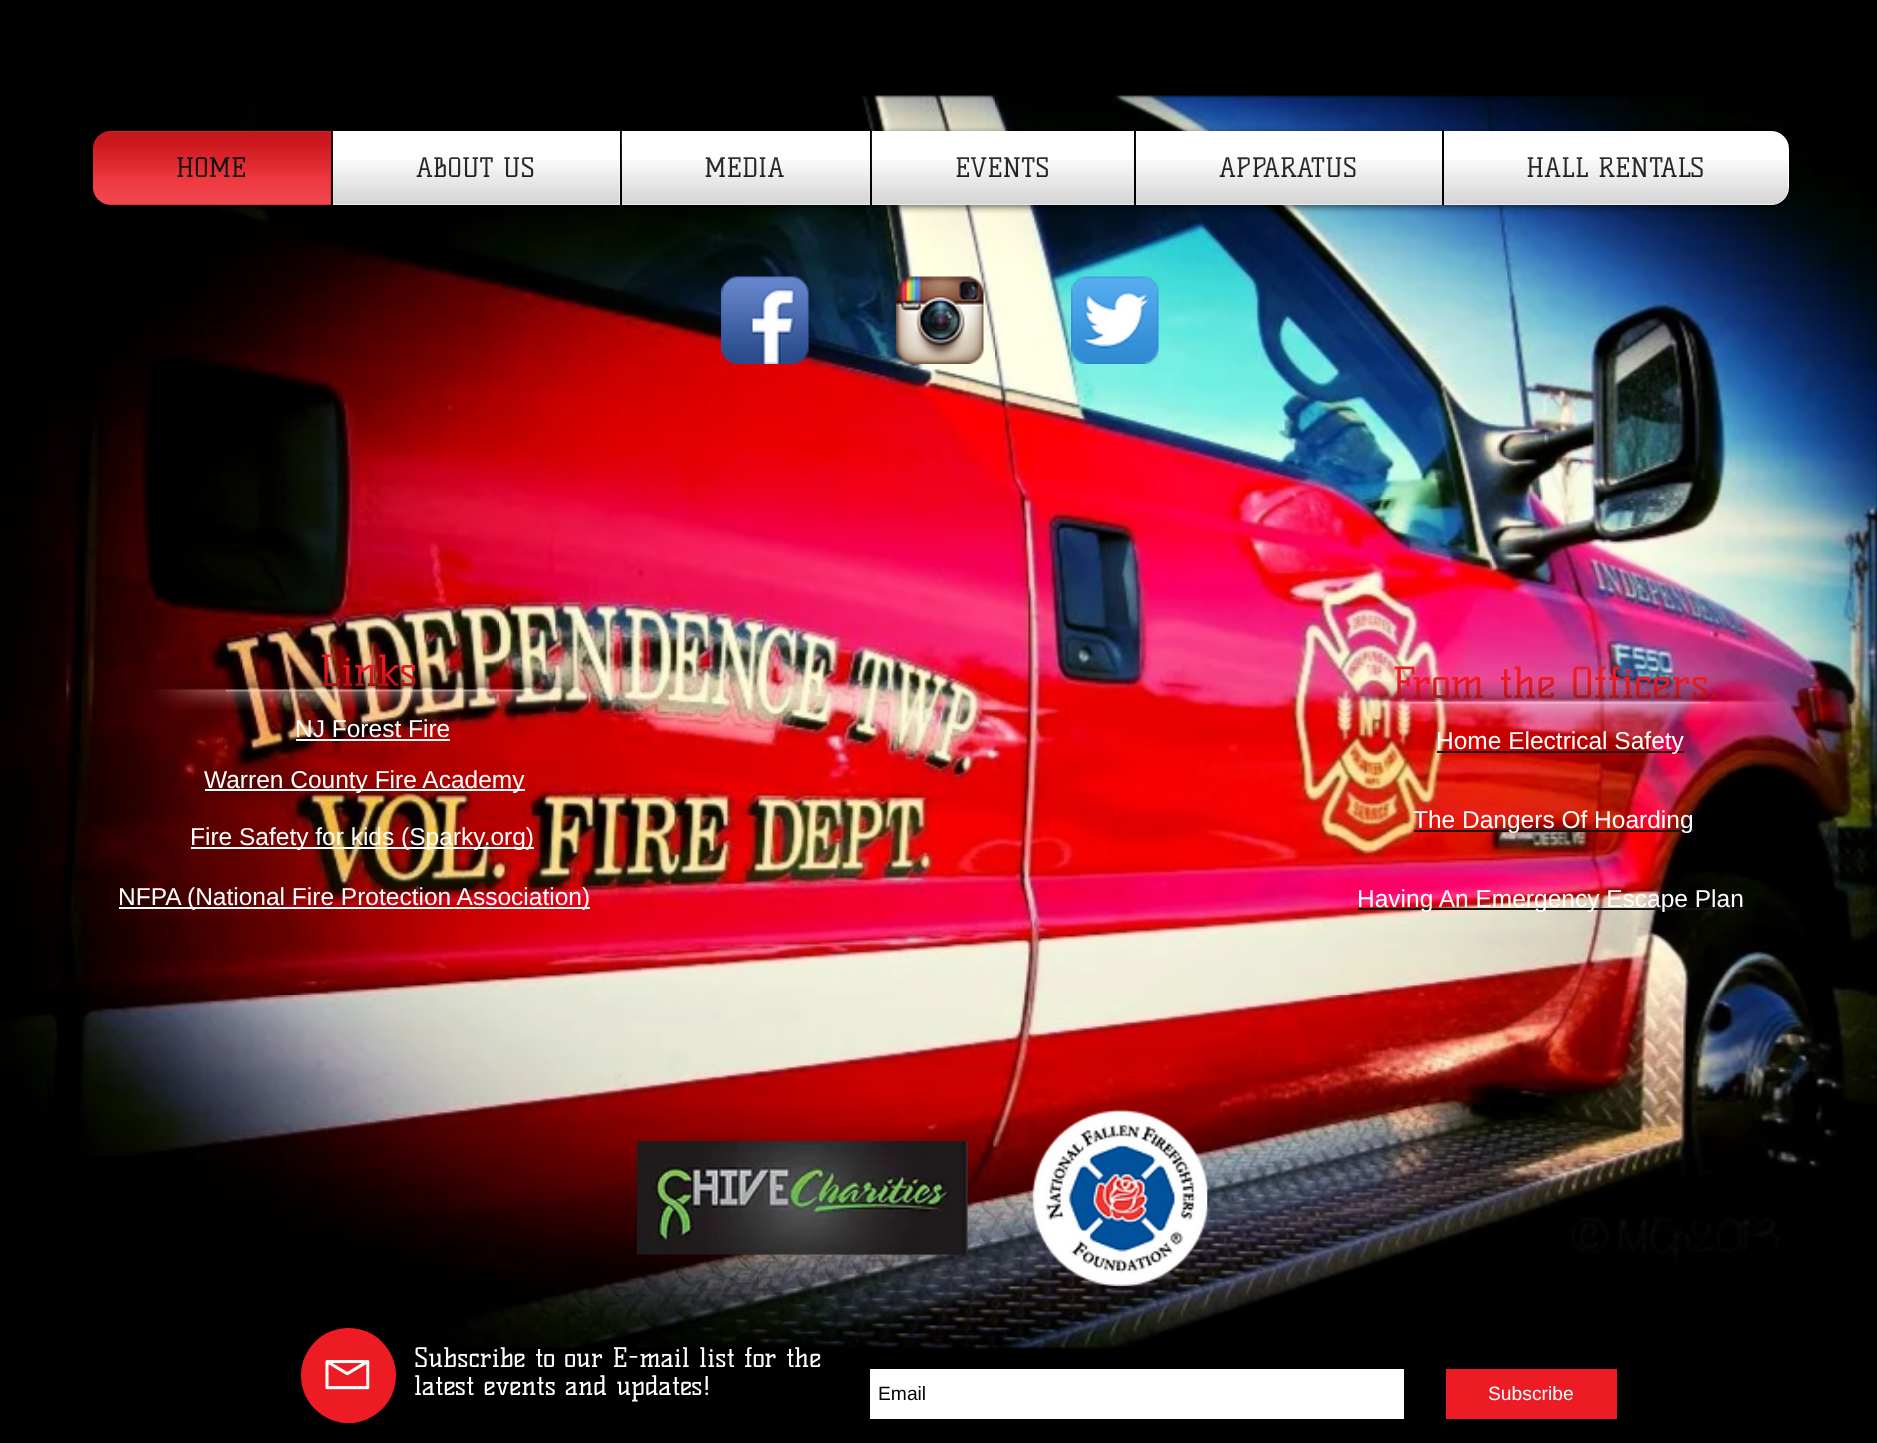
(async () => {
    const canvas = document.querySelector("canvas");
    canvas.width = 1877;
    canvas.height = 1443;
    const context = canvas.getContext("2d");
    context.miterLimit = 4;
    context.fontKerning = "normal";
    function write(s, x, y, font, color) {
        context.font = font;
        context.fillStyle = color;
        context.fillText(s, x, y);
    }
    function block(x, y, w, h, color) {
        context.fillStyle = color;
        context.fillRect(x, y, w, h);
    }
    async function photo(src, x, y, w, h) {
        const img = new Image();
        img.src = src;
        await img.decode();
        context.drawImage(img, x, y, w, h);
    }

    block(0, 0, 1877, 1443, "rgb(0, 0, 0)");
    await photo("media/1.png", 0, 95, 1877, 1255);
    context.fillStyle = "rgba(0, 0, 0, 0.6)";
    context.filter = "blur(3.5px)";
    context.beginPath();
    context.roundRect(93, 133, 1696, 74, 18);
    context.fill();
    context.filter = "none";
    await photo("media/2.png", 93, 131, 1689, 16);
    await photo("media/3.png", 93, 187, 1687, 18);
    context.fillStyle = "rgb(237, 28, 36)";
    context.beginPath();
    context.roundRect(93, 131, 238, 74, [18, 0, 0, 18]);
    context.fill();
    write("HOME", 176, 177, "26.25px Kelly Slab", "rgb(0, 0, 0)");
    await photo("media/4.png", 93, 131, 238, 45);
    await photo("media/5.png", 93, 148, 238, 57);
    block(333, 131, 287, 74, "rgb(255, 255, 255)");
    block(331, 131, 2, 16, "rgb(0, 0, 0)");
    write("ABOUT US", 416, 177, "26.25px Kelly Slab", "rgb(22, 21, 21)");
    await photo("media/6.png", 332, 131, 201, 52);
    await photo("media/7.png", 333, 160, 287, 45);
    block(622, 131, 248, 74, "rgb(255, 255, 255)");
    block(620, 131, 2, 74, "rgb(0, 0, 0)");
    write("MEDIA", 704, 177, "26.25px Kelly Slab", "rgb(22, 21, 21)");
    await photo("media/8.png", 621, 131, 163, 55);
    await photo("media/9.png", 622, 160, 248, 45);
    block(872, 131, 262, 74, "rgb(255, 255, 255)");
    block(870, 131, 2, 74, "rgb(0, 0, 0)");
    write("EVENTS", 955, 177, "26.25px Kelly Slab", "rgb(22, 21, 21)");
    await photo("media/10.png", 871, 131, 177, 52);
    await photo("media/11.png", 872, 160, 262, 45);
    block(1136, 131, 306, 74, "rgb(255, 255, 255)");
    block(1134, 131, 2, 74, "rgb(0, 0, 0)");
    write("APPARATUS", 1219, 177, "26.25px Kelly Slab", "rgb(22, 21, 21)");
    await photo("media/12.png", 1135, 131, 221, 46);
    await photo("media/13.png", 1136, 160, 306, 45);
    context.fillStyle = "rgb(255, 255, 255)";
    context.beginPath();
    context.roundRect(1442, 131, 347, 74, [0, 18, 18, 0]);
    context.fill();
    block(1442, 131, 2, 74, "rgb(0, 0, 0)");
    write("HALL RENTALS", 1526, 177, "26.25px Kelly Slab", "rgb(22, 21, 21)");
    await photo("media/14.png", 1527, 157, 176, 20);
    await photo("media/15.png", 1444, 160, 344, 45);
    await photo("media/16.png", 721, 276, 88, 88);
    await photo("media/17.png", 896, 276, 88, 88);
    await photo("media/18.png", 1071, 276, 88, 88);
    write("Links", 319, 686, "42px Kelly Slab", "rgb(237, 28, 36)");
    write("From the Officers.", 1392, 698, "42px Kelly Slab", "rgb(237, 28, 36)");
    await photo("media/19.png", 225, 668, 306, 41);
    await photo("media/20.png", 153, 671, 73, 38);
    await photo("media/21.png", 530, 669, 73, 40);
    await photo("media/22.png", 1405, 681, 305, 40);
    await photo("media/23.png", 1333, 681, 73, 40);
    await photo("media/24.png", 1709, 681, 73, 40);
    write("NJ Forest Fire", 295, 737, "24.5px Liberation Sans", "rgb(255, 255, 255)");
    block(296, 739, 154, 2, "rgb(255, 255, 255)");
    block(1437, 751, 247, 2, "rgb(22, 21, 21)");
    write("Home Electrical Safety", 1436, 749, "24.5px Liberation Sans", "rgb(255, 255, 255)");
    block(205, 789, 320, 2, "rgb(255, 255, 255)");
    write("Warren County Fire Academy", 204, 788, "24.5px Liberation Sans", "rgb(255, 255, 255)");
    block(1414, 830, 280, 2, "rgb(22, 21, 21)");
    write("The Dangers Of Hoarding", 1413, 828, "24.5px Liberation Sans", "rgb(255, 255, 255)");
    block(191, 847, 343, 2, "rgb(255, 255, 255)");
    write("Fire Safety for kids (Sparky.org)", 190, 845, "24.5px Liberation Sans", "rgb(255, 255, 255)");
    block(119, 907, 471, 2, "rgb(255, 255, 255)");
    write("NFPA (National Fire Protection Association)", 118, 905, "24.5px Liberation Sans", "rgb(255, 255, 255)");
    block(1358, 908, 387, 2, "rgb(22, 21, 21)");
    write("Having An Emergency Escape Plan", 1357, 907, "24.5px Liberation Sans", "rgb(255, 255, 255)");
    await photo("media/28.png", 564, 1198, 871, 151);
    await photo("media/25.png", 637, 1141, 331, 114);
    await photo("media/26.png", 1032, 1109, 176, 178);
    context.fillStyle = "rgb(237, 28, 36)";
    context.beginPath();
    context.arc(348.5, 1375.5, 47.5, 0, Math.PI * 2);
    context.fill();
    await photo("media/27.png", 325, 1360, 45, 30);
    write("Subscribe to our E-mail list for the", 414, 1367, "26.25px Kelly Slab", "rgb(255, 255, 255)");
    write("latest events and updates!", 414, 1395, "26.25px Kelly Slab", "rgb(255, 255, 255)");
    block(870, 1369, 534, 50, "rgb(255, 255, 255)");
    write("Email", 878, 1400, "19.25px Liberation Sans", "rgb(0, 0, 0)");
    block(1446, 1369, 171, 50, "rgb(237, 28, 36)");
    write("Subscribe", 1488, 1400, "19.25px Liberation Sans", "rgb(255, 255, 255)");
})();
